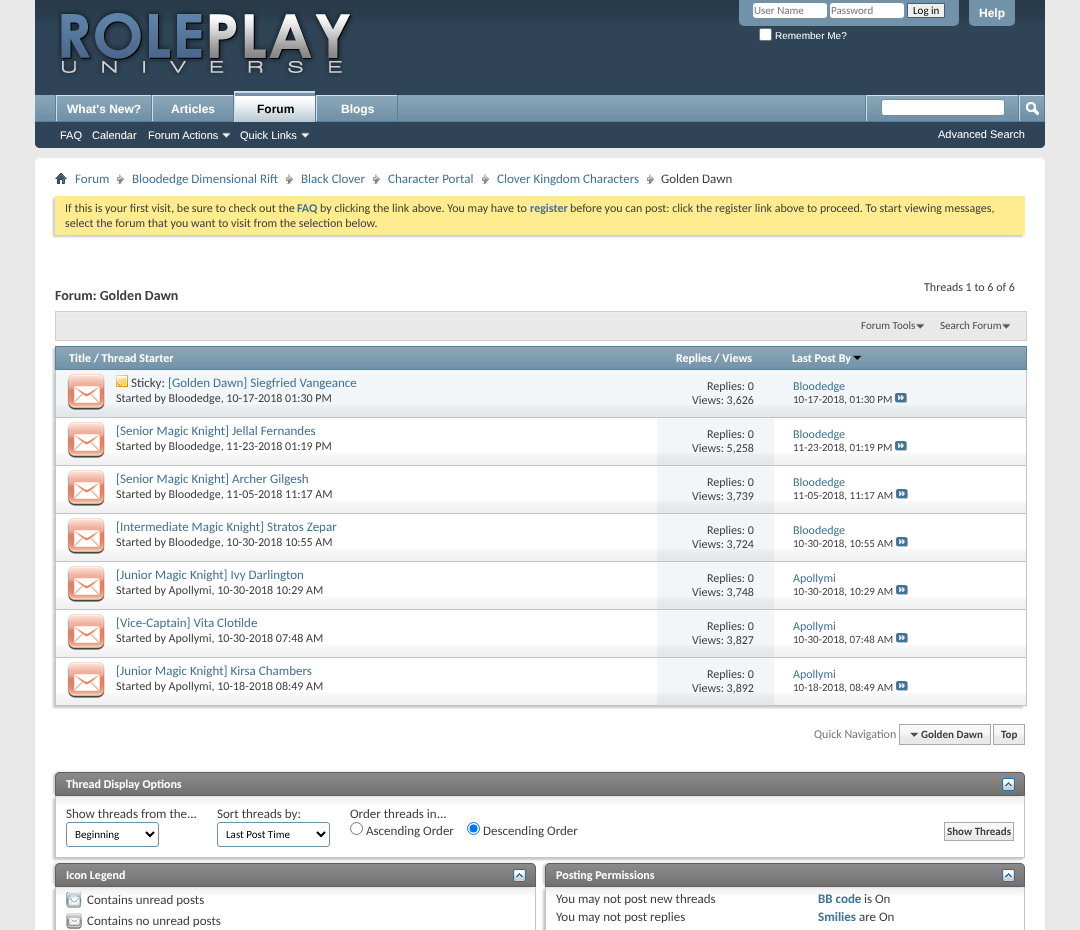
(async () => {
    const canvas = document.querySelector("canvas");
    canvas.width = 1080;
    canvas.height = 930;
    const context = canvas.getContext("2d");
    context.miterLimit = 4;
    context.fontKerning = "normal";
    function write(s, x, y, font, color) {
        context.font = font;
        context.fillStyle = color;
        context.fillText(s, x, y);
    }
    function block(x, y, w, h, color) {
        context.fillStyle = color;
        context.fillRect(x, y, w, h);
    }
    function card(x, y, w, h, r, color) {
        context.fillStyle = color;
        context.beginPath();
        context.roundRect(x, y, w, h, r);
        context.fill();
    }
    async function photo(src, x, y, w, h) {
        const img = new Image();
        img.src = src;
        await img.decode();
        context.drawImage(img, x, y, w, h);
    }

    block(0, 0, 1080, 930, "rgb(233, 233, 233)");
    context.fillStyle = "rgb(47, 68, 86)";
    context.beginPath();
    context.roundRect(35, 0, 1010, 148, [0, 0, 5, 5]);
    context.fill();
    await photo("media/1.png", 35, 0, 1010, 22);
    await photo("media/2.png", 57, 9, 297, 68);
    context.fillStyle = "rgb(113, 146, 168)";
    context.beginPath();
    context.roundRect(739, 0, 220, 26, [0, 0, 5, 5]);
    context.fill();
    card(753, 3, 74, 15, 3, "rgb(255, 255, 255)");
    write("User Name", 754, 14, "11px Carlito", "rgb(119, 119, 119)");
    card(830, 3, 74, 15, 3, "rgb(255, 255, 255)");
    write("Password", 831, 14, "11px Carlito", "rgb(119, 119, 119)");
    context.fillStyle = "rgb(239, 239, 239)";
    context.beginPath();
    context.rect(907.5, 3.5, 37, 14);
    context.fill();
    context.strokeStyle = "rgb(65, 93, 141)";
    context.stroke();
    write("Log in", 913, 14, "11px Carlito", "rgb(0, 0, 0)");
    context.fillStyle = "rgb(255, 255, 255)";
    context.beginPath();
    context.roundRect(759.5, 28.5, 12, 12, 1.5);
    context.fill();
    context.strokeStyle = "rgb(118, 118, 118)";
    context.stroke();
    write("Remember Me?", 775, 39, "10px Liberation Sans", "rgb(255, 255, 255)");
    context.fillStyle = "rgb(113, 146, 168)";
    context.beginPath();
    context.roundRect(969, 0, 46, 26, [0, 0, 5, 5]);
    context.fill();
    write("Help", 979, 17, "bold 12px Liberation Sans", "rgb(255, 255, 255)");
    context.fillStyle = "rgb(47, 68, 86)";
    context.beginPath();
    context.roundRect(35, 95, 1010, 53, [0, 0, 5, 5]);
    context.fill();
    block(35, 95, 1009, 26, "rgb(113, 146, 168)");
    await photo("media/3.png", 35, 95, 1009, 20);
    block(151, 95, 1, 27, "rgb(90, 127, 151)");
    block(55, 95, 1, 27, "rgb(90, 127, 151)");
    block(57, 96, 94, 19, "rgb(113, 146, 168)");
    await photo("media/4.png", 57, 96, 94, 20);
    block(56, 95, 95, 1, "rgb(206, 223, 235)");
    block(56, 95, 1, 27, "rgb(206, 223, 235)");
    write("What's New?", 67, 113, "bold 12px Liberation Sans", "rgb(255, 255, 255)");
    block(233, 95, 1, 27, "rgb(90, 127, 151)");
    block(153, 96, 80, 19, "rgb(113, 146, 168)");
    await photo("media/5.png", 153, 96, 80, 20);
    block(152, 95, 81, 1, "rgb(206, 223, 235)");
    block(152, 95, 1, 27, "rgb(206, 223, 235)");
    write("Articles", 171, 113, "bold 12px Liberation Sans", "rgb(255, 255, 255)");
    block(315, 95, 1, 26, "rgb(90, 127, 151)");
    block(397, 95, 1, 27, "rgb(90, 127, 151)");
    block(316, 95, 81, 1, "rgb(206, 223, 235)");
    block(316, 95, 1, 27, "rgb(206, 223, 235)");
    block(35, 121, 1010, 1, "rgb(90, 127, 151)");
    block(235, 92, 80, 30, "rgb(113, 146, 168)");
    await photo("media/6.png", 235, 92, 80, 30);
    block(234, 91, 81, 1, "rgb(206, 223, 235)");
    block(234, 91, 1, 31, "rgb(206, 223, 235)");
    write("Forum", 257, 113, "bold 12px Liberation Sans", "rgb(0, 0, 0)");
    block(317, 96, 80, 19, "rgb(113, 146, 168)");
    await photo("media/5.png", 317, 96, 80, 20);
    write("Blogs", 341, 113, "bold 12px Liberation Sans", "rgb(255, 255, 255)");
    write("FAQ", 60, 139, "11px Liberation Sans", "rgb(255, 255, 255)");
    write("Calendar", 92, 139, "11px Liberation Sans", "rgb(255, 255, 255)");
    write("Forum Actions", 148, 139, "11px Liberation Sans", "rgb(255, 255, 255)");
    await photo("media/7.png", 222, 132, 9, 6);
    write("Quick Links", 240, 139, "11px Liberation Sans", "rgb(255, 255, 255)");
    await photo("media/7.png", 301, 132, 9, 6);
    block(865, 95, 1, 26, "rgb(90, 127, 151)");
    block(866, 95, 152, 1, "rgb(206, 223, 235)");
    block(866, 95, 1, 26, "rgb(206, 223, 235)");
    context.fillStyle = "rgb(255, 255, 255)";
    context.beginPath();
    context.roundRect(881.5, 99.5, 123, 16, 2.5);
    context.fill();
    context.strokeStyle = "rgb(107, 145, 171)";
    context.stroke();
    block(1044, 95, 1, 26, "rgb(90, 127, 151)");
    block(1018, 95, 1, 26, "rgb(90, 127, 151)");
    block(1019, 95, 25, 1, "rgb(206, 223, 235)");
    block(1019, 95, 1, 26, "rgb(206, 223, 235)");
    await photo("media/8.png", 1026, 102, 13, 14);
    write("Advanced Search", 938, 138, "11px Liberation Sans", "rgb(255, 255, 255)");
    card(35, 158, 1010, 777, 5, "rgb(255, 255, 255)");
    await photo("media/9.png", 55, 173, 12, 11);
    await photo("media/10.png", 117, 174, 7, 10);
    write("Forum", 75, 183, "13px Carlito", "rgb(65, 115, 148)");
    await photo("media/10.png", 286, 174, 7, 10);
    write("Bloodedge Dimensional Rift", 132, 183, "13px Carlito", "rgb(65, 115, 148)");
    await photo("media/10.png", 373, 174, 7, 10);
    write("Black Clover", 301, 183, "13px Carlito", "rgb(65, 115, 148)");
    await photo("media/10.png", 482, 174, 7, 10);
    write("Character Portal", 388, 183, "13px Carlito", "rgb(65, 115, 148)");
    await photo("media/10.png", 647, 174, 7, 10);
    write("Clover Kingdom Characters", 497, 183, "13px Carlito", "rgb(65, 115, 148)");
    write("Golden Dawn", 661, 183, "13px Carlito", "rgb(62, 62, 62)");
    context.fillStyle = "rgb(200, 200, 200)";
    context.filter = "blur(1px)";
    context.beginPath();
    context.rect(53, 198, 970, 39);
    context.fill();
    context.filter = "none";
    block(55, 196, 970, 39, "rgb(255, 235, 144)");
    write("If this is your first visit, be sure to check out the", 65, 212, "12px Carlito", "rgb(62, 62, 62)");
    write("FAQ", 297, 212, "bold 12px Carlito", "rgb(65, 115, 148)");
    write("by clicking the link above. You may have to", 320, 212, "12px Carlito", "rgb(62, 62, 62)");
    write("register", 530, 212, "bold 12px Carlito", "rgb(65, 115, 148)");
    write("before you can post: click the register link above to proceed. To start viewing messages,", 570, 212, "12px Carlito", "rgb(62, 62, 62)");
    write("select the forum that you want to visit from the selection below.", 65, 227, "12px Carlito", "rgb(62, 62, 62)");
    write("Threads 1 to 6 of 6", 924, 291, "12px Carlito", "rgb(62, 62, 62)");
    write("Forum: Golden Dawn", 55, 300, "bold 14px Carlito", "rgb(62, 62, 62)");
    block(56, 313, 970, 27, "rgb(233, 233, 233)");
    block(55, 312, 972, 1, "rgb(237, 237, 237)");
    context.strokeStyle = "rgb(206, 206, 206)";
    context.strokeRect(55.5, 311.5, 971, 29);
    await photo("media/11.png", 916, 323, 9, 7);
    write("Forum Tools", 861, 329, "11px Carlito", "rgb(78, 78, 78)");
    await photo("media/11.png", 1002, 323, 9, 7);
    write("Search Forum", 940, 329, "11px Carlito", "rgb(78, 78, 78)");
    context.fillStyle = "rgb(200, 200, 200)";
    context.filter = "blur(1px)";
    context.beginPath();
    context.rect(53, 348, 972, 24);
    context.fill();
    context.filter = "none";
    block(56, 347, 970, 22, "rgb(113, 146, 168)");
    await photo("media/12.png", 56, 347, 970, 20);
    context.strokeStyle = "rgb(90, 127, 151)";
    context.strokeRect(55.5, 346.5, 971, 23);
    write("Title / Thread Starter", 69, 362, "bold 12px Carlito", "rgb(255, 255, 255)");
    write("Replies / Views", 676, 362, "bold 12px Carlito", "rgb(255, 255, 255)");
    write("Last Post By", 792, 362, "bold 12px Carlito", "rgb(255, 255, 255)");
    await photo("media/13.png", 853, 355, 9, 5);
    context.fillStyle = "rgb(200, 200, 200)";
    context.filter = "blur(1px)";
    context.beginPath();
    context.rect(53, 372, 970, 48);
    context.fill();
    context.filter = "none";
    block(56, 370, 970, 47, "rgb(242, 246, 248)");
    await photo("media/14.png", 56, 405, 970, 12);
    block(1026, 370, 1, 48, "rgb(196, 196, 196)");
    block(55, 417, 972, 1, "rgb(196, 196, 196)");
    block(55, 370, 1, 48, "rgb(196, 196, 196)");
    await photo("media/15.png", 67, 374, 38, 36);
    await photo("media/16.png", 116, 375, 12, 12);
    write("Sticky:", 131, 387, "13px Carlito", "rgb(62, 62, 62)");
    write("[Golden Dawn] Siegfried Vangeance", 168, 387, "13px Carlito", "rgb(65, 115, 148)");
    write("Started by Bloodedge, 10-17-2018 01:30 PM", 116, 402, "12px Carlito", "rgb(62, 62, 62)");
    block(657, 405, 117, 12, "rgb(242, 246, 248)");
    await photo("media/17.png", 657, 405, 117, 12);
    write("Replies: 0", 707, 390, "12px Carlito", "rgb(62, 62, 62)");
    write("Views: 3,626", 692, 404, "12px Carlito", "rgb(62, 62, 62)");
    write("Bloodedge", 793, 390, "12px Carlito", "rgb(65, 115, 148)");
    write("10-17-2018, 01:30 PM", 793, 403, "11px Carlito", "rgb(62, 62, 62)");
    await photo("media/18.png", 895, 393, 12, 10);
    context.fillStyle = "rgb(200, 200, 200)";
    context.filter = "blur(1px)";
    context.beginPath();
    context.rect(53, 420, 970, 48);
    context.fill();
    context.filter = "none";
    block(56, 418, 969, 47, "rgb(255, 255, 255)");
    await photo("media/19.png", 56, 453, 970, 12);
    block(1026, 418, 1, 48, "rgb(196, 196, 196)");
    block(55, 465, 972, 1, "rgb(196, 196, 196)");
    block(55, 418, 1, 48, "rgb(196, 196, 196)");
    await photo("media/20.png", 67, 422, 38, 36);
    write("[Senior Magic Knight] Jellal Fernandes", 116, 435, "13px Carlito", "rgb(65, 115, 148)");
    write("Started by Bloodedge, 11-23-2018 01:19 PM", 116, 450, "12px Carlito", "rgb(62, 62, 62)");
    block(657, 418, 117, 47, "rgb(242, 246, 248)");
    await photo("media/17.png", 657, 453, 117, 12);
    write("Replies: 0", 707, 438, "12px Carlito", "rgb(62, 62, 62)");
    write("Views: 5,258", 692, 452, "12px Carlito", "rgb(62, 62, 62)");
    write("Bloodedge", 793, 438, "12px Carlito", "rgb(65, 115, 148)");
    write("11-23-2018, 01:19 PM", 793, 451, "11px Carlito", "rgb(62, 62, 62)");
    await photo("media/21.png", 895, 441, 12, 10);
    context.fillStyle = "rgb(200, 200, 200)";
    context.filter = "blur(1px)";
    context.beginPath();
    context.rect(53, 468, 970, 48);
    context.fill();
    context.filter = "none";
    block(56, 466, 969, 47, "rgb(255, 255, 255)");
    await photo("media/19.png", 56, 501, 970, 12);
    block(1026, 466, 1, 48, "rgb(196, 196, 196)");
    block(55, 513, 972, 1, "rgb(196, 196, 196)");
    block(55, 466, 1, 48, "rgb(196, 196, 196)");
    await photo("media/20.png", 67, 470, 38, 36);
    write("[Senior Magic Knight] Archer Gilgesh", 116, 483, "13px Carlito", "rgb(65, 115, 148)");
    write("Started by Bloodedge, 11-05-2018 11:17 AM", 116, 498, "12px Carlito", "rgb(62, 62, 62)");
    block(657, 466, 117, 47, "rgb(242, 246, 248)");
    await photo("media/17.png", 657, 501, 117, 12);
    write("Replies: 0", 707, 486, "12px Carlito", "rgb(62, 62, 62)");
    write("Views: 3,739", 692, 500, "12px Carlito", "rgb(62, 62, 62)");
    write("Bloodedge", 793, 486, "12px Carlito", "rgb(65, 115, 148)");
    write("11-05-2018, 11:17 AM", 793, 499, "11px Carlito", "rgb(62, 62, 62)");
    await photo("media/21.png", 896, 489, 12, 10);
    context.fillStyle = "rgb(200, 200, 200)";
    context.filter = "blur(1px)";
    context.beginPath();
    context.rect(53, 516, 970, 48);
    context.fill();
    context.filter = "none";
    block(56, 514, 969, 47, "rgb(255, 255, 255)");
    await photo("media/19.png", 56, 549, 970, 12);
    block(1026, 514, 1, 48, "rgb(196, 196, 196)");
    block(55, 561, 972, 1, "rgb(196, 196, 196)");
    block(55, 514, 1, 48, "rgb(196, 196, 196)");
    await photo("media/20.png", 67, 518, 38, 36);
    write("[Intermediate Magic Knight] Stratos Zepar", 116, 531, "13px Carlito", "rgb(65, 115, 148)");
    write("Started by Bloodedge, 10-30-2018 10:55 AM", 116, 546, "12px Carlito", "rgb(62, 62, 62)");
    block(657, 514, 117, 47, "rgb(242, 246, 248)");
    await photo("media/17.png", 657, 549, 117, 12);
    write("Replies: 0", 707, 534, "12px Carlito", "rgb(62, 62, 62)");
    write("Views: 3,724", 692, 548, "12px Carlito", "rgb(62, 62, 62)");
    write("Bloodedge", 793, 534, "12px Carlito", "rgb(65, 115, 148)");
    write("10-30-2018, 10:55 AM", 793, 547, "11px Carlito", "rgb(62, 62, 62)");
    await photo("media/21.png", 896, 537, 12, 10);
    context.fillStyle = "rgb(200, 200, 200)";
    context.filter = "blur(1px)";
    context.beginPath();
    context.rect(53, 564, 970, 48);
    context.fill();
    context.filter = "none";
    block(56, 562, 969, 47, "rgb(255, 255, 255)");
    await photo("media/19.png", 56, 597, 970, 12);
    block(1026, 562, 1, 48, "rgb(196, 196, 196)");
    block(55, 609, 972, 1, "rgb(196, 196, 196)");
    block(55, 562, 1, 48, "rgb(196, 196, 196)");
    await photo("media/20.png", 67, 566, 38, 36);
    write("[Junior Magic Knight] Ivy Darlington", 116, 579, "13px Carlito", "rgb(65, 115, 148)");
    write("Started by Apollymi, 10-30-2018 10:29 AM", 116, 594, "12px Carlito", "rgb(62, 62, 62)");
    block(657, 562, 117, 47, "rgb(242, 246, 248)");
    await photo("media/17.png", 657, 597, 117, 12);
    write("Replies: 0", 707, 582, "12px Carlito", "rgb(62, 62, 62)");
    write("Views: 3,748", 692, 596, "12px Carlito", "rgb(62, 62, 62)");
    write("Apollymi", 793, 582, "12px Carlito", "rgb(65, 115, 148)");
    write("10-30-2018, 10:29 AM", 793, 595, "11px Carlito", "rgb(62, 62, 62)");
    await photo("media/21.png", 896, 585, 12, 10);
    context.fillStyle = "rgb(200, 200, 200)";
    context.filter = "blur(1px)";
    context.beginPath();
    context.rect(53, 612, 970, 48);
    context.fill();
    context.filter = "none";
    block(56, 610, 969, 47, "rgb(255, 255, 255)");
    await photo("media/19.png", 56, 645, 970, 12);
    block(1026, 610, 1, 48, "rgb(196, 196, 196)");
    block(55, 657, 972, 1, "rgb(196, 196, 196)");
    block(55, 610, 1, 48, "rgb(196, 196, 196)");
    await photo("media/20.png", 67, 614, 38, 36);
    write("[Vice-Captain] Vita Clotilde", 116, 627, "13px Carlito", "rgb(65, 115, 148)");
    write("Started by Apollymi, 10-30-2018 07:48 AM", 116, 642, "12px Carlito", "rgb(62, 62, 62)");
    block(657, 610, 117, 47, "rgb(242, 246, 248)");
    await photo("media/17.png", 657, 645, 117, 12);
    write("Replies: 0", 707, 630, "12px Carlito", "rgb(62, 62, 62)");
    write("Views: 3,827", 692, 644, "12px Carlito", "rgb(62, 62, 62)");
    write("Apollymi", 793, 630, "12px Carlito", "rgb(65, 115, 148)");
    write("10-30-2018, 07:48 AM", 793, 643, "11px Carlito", "rgb(62, 62, 62)");
    await photo("media/21.png", 896, 633, 12, 10);
    context.fillStyle = "rgb(200, 200, 200)";
    context.filter = "blur(1px)";
    context.beginPath();
    context.rect(53, 660, 970, 48);
    context.fill();
    context.filter = "none";
    block(56, 658, 969, 47, "rgb(255, 255, 255)");
    await photo("media/19.png", 56, 693, 970, 12);
    block(1026, 658, 1, 48, "rgb(196, 196, 196)");
    block(55, 705, 972, 1, "rgb(196, 196, 196)");
    block(55, 658, 1, 48, "rgb(196, 196, 196)");
    await photo("media/20.png", 67, 662, 38, 36);
    write("[Junior Magic Knight] Kirsa Chambers", 116, 675, "13px Carlito", "rgb(65, 115, 148)");
    write("Started by Apollymi, 10-18-2018 08:49 AM", 116, 690, "12px Carlito", "rgb(62, 62, 62)");
    block(657, 658, 117, 47, "rgb(242, 246, 248)");
    await photo("media/17.png", 657, 693, 117, 12);
    write("Replies: 0", 707, 678, "12px Carlito", "rgb(62, 62, 62)");
    write("Views: 3,892", 692, 692, "12px Carlito", "rgb(62, 62, 62)");
    write("Apollymi", 793, 678, "12px Carlito", "rgb(65, 115, 148)");
    write("10-18-2018, 08:49 AM", 793, 691, "11px Carlito", "rgb(62, 62, 62)");
    await photo("media/21.png", 896, 681, 12, 10);
    write("Quick Navigation", 814, 738, "12px Carlito", "rgb(119, 119, 119)");
    block(900, 725, 90, 19, "rgb(233, 233, 233)");
    await photo("media/22.png", 900, 725, 90, 12);
    block(994, 725, 30, 19, "rgb(233, 233, 233)");
    await photo("media/23.png", 994, 725, 30, 12);
    context.strokeStyle = "rgb(168, 168, 168)";
    context.strokeRect(899.5, 724.5, 91, 20);
    await photo("media/24.png", 910, 732, 9, 6);
    write("Golden Dawn", 921, 738, "bold 11px Carlito", "rgb(62, 62, 62)");
    context.strokeRect(993.5, 724.5, 31, 20);
    write("Top", 1001, 738, "bold 11px Carlito", "rgb(62, 62, 62)");
    context.save();
    context.beginPath();
    context.moveTo(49, 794);
    context.lineTo(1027, 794);
    context.lineTo(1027, 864);
    context.lineTo(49, 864);
    context.closePath();
    context.moveTo(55, 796);
    context.lineTo(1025, 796);
    context.lineTo(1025, 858);
    context.lineTo(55, 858);
    context.closePath();
    context.clip("evenodd");
    context.fillStyle = "rgb(200, 200, 200)";
    context.filter = "blur(1px)";
    context.beginPath();
    context.rect(53, 798, 970, 62);
    context.fill();
    context.filter = "none";
    context.restore();
    await photo("media/27.png", 56, 796, 968, 9);
    block(1024, 796, 1, 62, "rgb(196, 196, 196)");
    block(55, 857, 970, 1, "rgb(196, 196, 196)");
    block(55, 796, 1, 62, "rgb(196, 196, 196)");
    context.fillStyle = "rgb(200, 200, 200)";
    context.filter = "blur(1px)";
    context.beginPath();
    context.roundRect(53, 772, 970, 24, 5);
    context.fill();
    context.filter = "none";
    context.fillStyle = "rgb(112, 112, 112)";
    context.beginPath();
    context.roundRect(55, 772, 970, 24, [5, 5, 0, 0]);
    context.fill();
    await photo("media/25.png", 55, 773, 970, 20);
    context.beginPath();
    context.roundRect(55.5, 772.5, 969, 23, [4.5, 4.5, 0, 0]);
    context.strokeStyle = "rgb(96, 96, 96)";
    context.stroke();
    write("Thread Display Options", 66, 788, "bold 12px Carlito", "rgb(255, 255, 255)");
    await photo("media/26.png", 1002, 778, 13, 13);
    write("Show threads from the...", 66, 818, "13px Carlito", "rgb(62, 62, 62)");
    context.beginPath();
    context.roundRect(66.5, 822.5, 92, 24, 2.5);
    context.strokeStyle = "rgb(107, 145, 171)";
    context.stroke();
    context.beginPath();
    context.moveTo(146, 832);
    context.lineTo(150, 836);
    context.lineTo(154, 832);
    context.strokeStyle = "rgb(0, 0, 0)";
    context.lineWidth = 2;
    context.stroke();
    write("Beginning", 75, 838, "11px Carlito", "rgb(0, 0, 0)");
    write("Sort threads by:", 217, 818, "13px Carlito", "rgb(62, 62, 62)");
    context.beginPath();
    context.roundRect(217.5, 822.5, 112, 24, 2.5);
    context.strokeStyle = "rgb(107, 145, 171)";
    context.lineWidth = 1;
    context.stroke();
    context.beginPath();
    context.moveTo(317, 832);
    context.lineTo(321, 836);
    context.lineTo(325, 832);
    context.strokeStyle = "rgb(0, 0, 0)";
    context.lineWidth = 2;
    context.stroke();
    write("Last Post Time", 226, 838, "11px Carlito", "rgb(0, 0, 0)");
    write("Order threads in...", 350, 818, "13px Carlito", "rgb(62, 62, 62)");
    context.beginPath();
    context.arc(356.5, 828.5, 6, 0, Math.PI * 2);
    context.strokeStyle = "rgb(118, 118, 118)";
    context.lineWidth = 1;
    context.stroke();
    write("Ascending Order", 366, 835, "13px Carlito", "rgb(62, 62, 62)");
    context.beginPath();
    context.arc(473.5, 828.5, 6, 0, Math.PI * 2);
    context.strokeStyle = "rgb(0, 117, 255)";
    context.stroke();
    context.fillStyle = "rgb(0, 117, 255)";
    context.beginPath();
    context.arc(473.5, 828.5, 4, 0, Math.PI * 2);
    context.fill();
    write("Descending Order", 483, 835, "13px Carlito", "rgb(62, 62, 62)");
    block(945, 823, 68, 17, "rgb(233, 233, 233)");
    await photo("media/28.png", 945, 823, 68, 12);
    context.strokeStyle = "rgb(168, 168, 168)";
    context.strokeRect(944.5, 822.5, 69, 18);
    write("Show Threads", 947, 835, "bold 11px Carlito", "rgb(62, 62, 62)");
    context.save();
    context.beginPath();
    context.rect(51, 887, 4, 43);
    context.clip();
    context.fillStyle = "rgb(200, 200, 200)";
    context.filter = "blur(1px)";
    context.beginPath();
    context.rect(53, 889, 481, 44);
    context.fill();
    context.filter = "none";
    context.restore();
    await photo("media/30.png", 56, 887, 479, 9);
    block(535, 887, 1, 43, "rgb(196, 196, 196)");
    block(55, 887, 1, 43, "rgb(196, 196, 196)");
    context.fillStyle = "rgb(200, 200, 200)";
    context.filter = "blur(1px)";
    context.beginPath();
    context.roundRect(53, 863, 481, 24, 5);
    context.fill();
    context.filter = "none";
    context.fillStyle = "rgb(112, 112, 112)";
    context.beginPath();
    context.roundRect(55, 863, 481, 24, [5, 5, 0, 0]);
    context.fill();
    await photo("media/29.png", 55, 864, 481, 20);
    context.beginPath();
    context.roundRect(55.5, 863.5, 480, 23, [4.5, 4.5, 0, 0]);
    context.strokeStyle = "rgb(96, 96, 96)";
    context.stroke();
    write("Icon Legend", 66, 879, "bold 12px Carlito", "rgb(255, 255, 255)");
    await photo("media/26.png", 513, 869, 13, 13);
    await photo("media/31.png", 66, 892, 16, 16);
    write("Contains unread posts", 87, 904, "13px Carlito", "rgb(62, 62, 62)");
    await photo("media/32.png", 66, 913, 16, 16);
    write("Contains no unread posts", 87, 925, "13px Carlito", "rgb(62, 62, 62)");
    context.save();
    context.beginPath();
    context.rect(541, 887, 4, 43);
    context.clip();
    context.fillStyle = "rgb(200, 200, 200)";
    context.filter = "blur(1px)";
    context.beginPath();
    context.rect(543, 889, 480, 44);
    context.fill();
    context.filter = "none";
    context.restore();
    await photo("media/34.png", 546, 887, 478, 9);
    block(1024, 887, 1, 43, "rgb(196, 196, 196)");
    block(545, 887, 1, 43, "rgb(196, 196, 196)");
    context.fillStyle = "rgb(200, 200, 200)";
    context.filter = "blur(1px)";
    context.beginPath();
    context.roundRect(543, 863, 480, 24, 5);
    context.fill();
    context.filter = "none";
    context.fillStyle = "rgb(112, 112, 112)";
    context.beginPath();
    context.roundRect(545, 863, 480, 24, [5, 5, 0, 0]);
    context.fill();
    await photo("media/33.png", 545, 864, 480, 20);
    context.beginPath();
    context.roundRect(545.5, 863.5, 479, 23, [4.5, 4.5, 0, 0]);
    context.stroke();
    write("Posting Permissions", 556, 879, "bold 12px Carlito", "rgb(255, 255, 255)");
    await photo("media/26.png", 1002, 869, 13, 13);
    write("You may not post new threads", 556, 903, "13px Carlito", "rgb(62, 62, 62)");
    write("You may not post replies", 556, 921, "13px Carlito", "rgb(62, 62, 62)");
    write("BB code", 818, 903, "bold 13px Carlito", "rgb(65, 115, 148)");
    write("is On", 864, 903, "13px Carlito", "rgb(62, 62, 62)");
    write("Smilies", 818, 921, "bold 13px Carlito", "rgb(65, 115, 148)");
    write("are On", 859, 921, "13px Carlito", "rgb(62, 62, 62)");
})();
